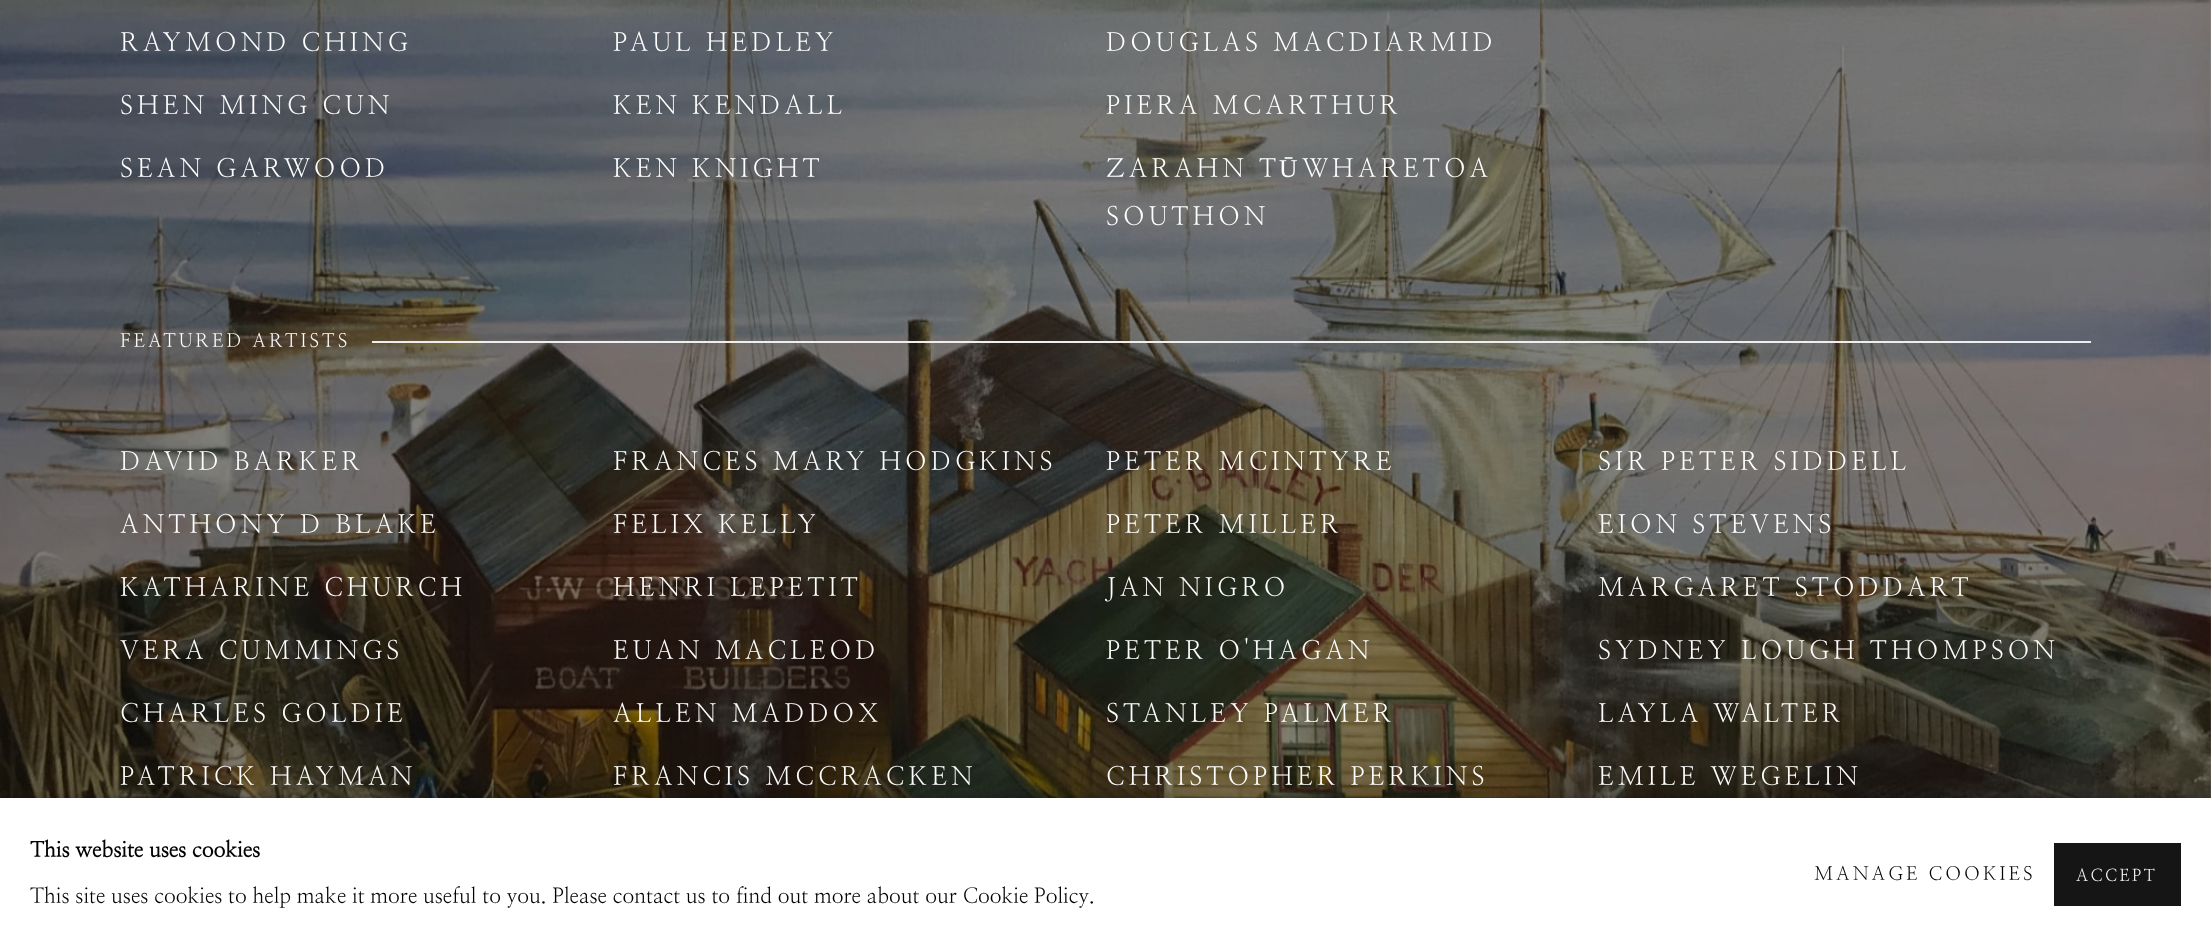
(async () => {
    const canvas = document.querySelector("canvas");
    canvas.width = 2211;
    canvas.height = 950;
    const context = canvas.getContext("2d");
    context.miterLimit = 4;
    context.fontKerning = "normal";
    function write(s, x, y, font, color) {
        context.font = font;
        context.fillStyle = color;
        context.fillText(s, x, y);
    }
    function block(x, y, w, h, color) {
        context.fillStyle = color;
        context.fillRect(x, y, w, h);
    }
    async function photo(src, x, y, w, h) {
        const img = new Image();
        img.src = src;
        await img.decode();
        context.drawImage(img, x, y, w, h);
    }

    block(0, 0, 2211, 950, "rgb(255, 255, 255)");
    await photo("media/1.png", 0, 0, 2211, 798);
    context.letterSpacing = "4.1px";
    write("RAYMOND CHING", 120, 51, "25.5px NanumMyeongjo", "rgb(255, 255, 255)");
    write("SHEN MING CUN", 120, 114, "25.5px NanumMyeongjo", "rgb(255, 255, 255)");
    write("SEAN GARWOOD", 120, 177, "25.5px NanumMyeongjo", "rgb(255, 255, 255)");
    write("PAUL HEDLEY", 613, 51, "25.5px NanumMyeongjo", "rgb(255, 255, 255)");
    write("KEN KENDALL", 613, 114, "25.5px NanumMyeongjo", "rgb(255, 255, 255)");
    write("KEN KNIGHT", 613, 177, "25.5px NanumMyeongjo", "rgb(255, 255, 255)");
    write("DOUGLAS MACDIARMID", 1106, 51, "25.5px NanumMyeongjo", "rgb(255, 255, 255)");
    write("PIERA MCARTHUR", 1106, 114, "25.5px NanumMyeongjo", "rgb(255, 255, 255)");
    write("ZARAHN T", 1106, 177, "25.5px NanumMyeongjo", "rgb(255, 255, 255)");
    write("Ū", 1279, 177, "25.5px Liberation Serif", "rgb(255, 255, 255)");
    write("WHARETOA", 1302, 177, "25.5px NanumMyeongjo", "rgb(255, 255, 255)");
    write("SOUTHON", 1106, 225, "25.5px NanumMyeongjo", "rgb(255, 255, 255)");
    context.letterSpacing = "3px";
    write("FEATURED ARTISTS", 120, 347, "18.75px NanumMyeongjo", "rgb(255, 255, 255)");
    block(372, 341, 1719, 2, "rgb(238, 238, 238)");
    context.letterSpacing = "4.1px";
    write("DAVID BARKER", 120, 470, "25.5px NanumMyeongjo", "rgb(255, 255, 255)");
    write("ANTHONY D BLAKE", 120, 533, "25.5px NanumMyeongjo", "rgb(255, 255, 255)");
    write("KATHARINE CHURCH", 120, 596, "25.5px NanumMyeongjo", "rgb(255, 255, 255)");
    write("VERA CUMMINGS", 120, 659, "25.5px NanumMyeongjo", "rgb(255, 255, 255)");
    write("CHARLES GOLDIE", 120, 722, "25.5px NanumMyeongjo", "rgb(255, 255, 255)");
    write("PATRICK HAYMAN", 120, 785, "25.5px NanumMyeongjo", "rgb(255, 255, 255)");
    write("FRANCES MARY HODGKINS", 613, 470, "25.5px NanumMyeongjo", "rgb(255, 255, 255)");
    write("FELIX KELLY", 613, 533, "25.5px NanumMyeongjo", "rgb(255, 255, 255)");
    write("HENRI LEPETIT", 613, 596, "25.5px NanumMyeongjo", "rgb(255, 255, 255)");
    write("EUAN MACLEOD", 613, 659, "25.5px NanumMyeongjo", "rgb(255, 255, 255)");
    write("ALLEN MADDOX", 613, 722, "25.5px NanumMyeongjo", "rgb(255, 255, 255)");
    write("FRANCIS MCCRACKEN", 613, 785, "25.5px NanumMyeongjo", "rgb(255, 255, 255)");
    write("PETER MCINTYRE", 1106, 470, "25.5px NanumMyeongjo", "rgb(255, 255, 255)");
    write("PETER MILLER", 1106, 533, "25.5px NanumMyeongjo", "rgb(255, 255, 255)");
    write("JAN NIGRO", 1106, 596, "25.5px NanumMyeongjo", "rgb(255, 255, 255)");
    write("PETER O'HAGAN", 1106, 659, "25.5px NanumMyeongjo", "rgb(255, 255, 255)");
    write("STANLEY PALMER", 1106, 722, "25.5px NanumMyeongjo", "rgb(255, 255, 255)");
    write("CHRISTOPHER PERKINS", 1106, 785, "25.5px NanumMyeongjo", "rgb(255, 255, 255)");
    write("SIR PETER SIDDELL", 1598, 470, "25.5px NanumMyeongjo", "rgb(255, 255, 255)");
    write("EION STEVENS", 1598, 533, "25.5px NanumMyeongjo", "rgb(255, 255, 255)");
    write("MARGARET STODDART", 1598, 596, "25.5px NanumMyeongjo", "rgb(255, 255, 255)");
    write("SYDNEY LOUGH THOMPSON", 1598, 659, "25.5px NanumMyeongjo", "rgb(255, 255, 255)");
    write("LAYLA WALTER", 1598, 722, "25.5px NanumMyeongjo", "rgb(255, 255, 255)");
    write("EMILE WEGELIN", 1598, 785, "25.5px NanumMyeongjo", "rgb(255, 255, 255)");
    context.fillStyle = "rgba(0, 0, 0, 0.23)";
    context.filter = "blur(4px)";
    context.beginPath();
    context.rect(0, 798, 2211, 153);
    context.fill();
    context.filter = "none";
    block(0, 798, 2211, 152, "rgb(255, 255, 255)");
    context.letterSpacing = "0px";
    write("This website uses cookies", 30, 857, "bold 21px NanumMyeongjo", "rgb(0, 0, 0)");
    write("This site uses cookies to help make it more useful to you. Please contact us to find out more about our Cookie Policy.", 30, 903, "21px NanumMyeongjo", "rgb(0, 0, 0)");
    context.letterSpacing = "3px";
    write("MANAGE COOKIES", 1814, 880, "18.75px NanumMyeongjo", "rgb(0, 0, 0)");
    block(2054, 843, 127, 63, "rgb(21, 21, 21)");
    context.letterSpacing = "2.5px";
    write("ACCEPT", 2076, 881, "16.5px NanumMyeongjo", "rgb(255, 255, 255)");
})();
